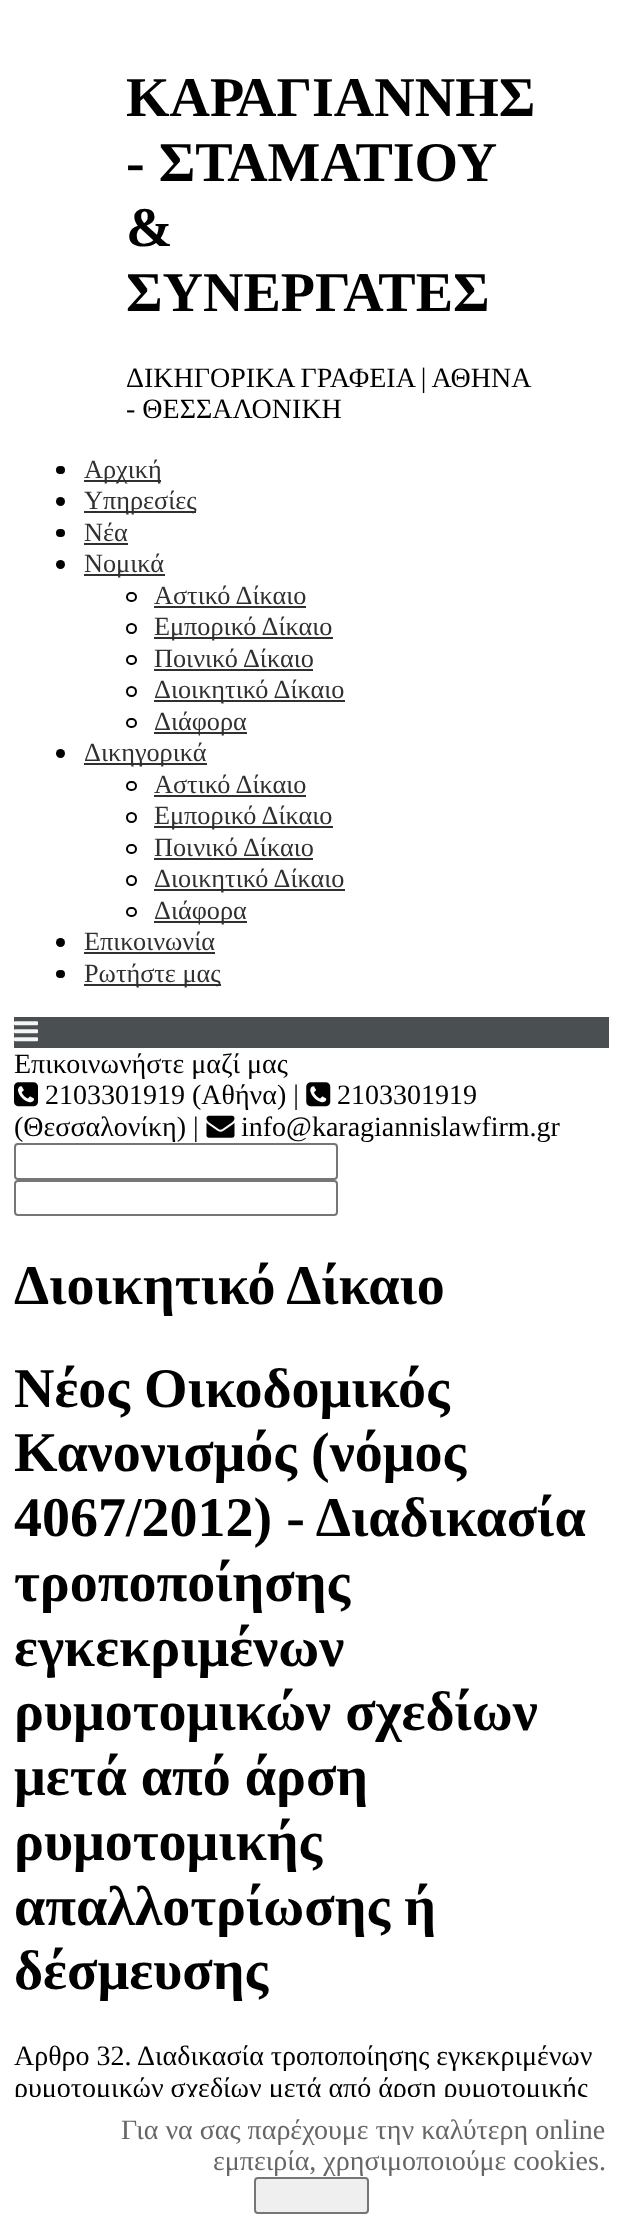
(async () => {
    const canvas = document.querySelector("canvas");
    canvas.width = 622;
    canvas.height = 2230;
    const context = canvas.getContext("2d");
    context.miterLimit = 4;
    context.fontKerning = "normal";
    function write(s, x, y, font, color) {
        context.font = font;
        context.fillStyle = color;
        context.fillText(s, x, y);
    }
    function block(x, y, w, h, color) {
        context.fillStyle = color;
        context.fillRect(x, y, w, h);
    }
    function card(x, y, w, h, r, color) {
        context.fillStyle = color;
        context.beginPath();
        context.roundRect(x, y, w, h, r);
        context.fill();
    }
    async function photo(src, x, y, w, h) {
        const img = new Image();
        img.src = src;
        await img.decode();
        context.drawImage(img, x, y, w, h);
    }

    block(0, 0, 622, 2230, "rgb(255, 255, 255)");
    write("ΚΑΡΑΓΙΑΝΝΗΣ", 126, 116, "bold 56px Liberation Serif", "rgb(0, 0, 0)");
    write("- ΣΤΑΜΑΤΙΟΥ", 126, 181, "bold 56px Liberation Serif", "rgb(0, 0, 0)");
    write("&", 126, 246, "bold 56px Liberation Serif", "rgb(0, 0, 0)");
    write("ΣΥΝΕΡΓΑΤΕΣ", 126, 311, "bold 56px Liberation Serif", "rgb(0, 0, 0)");
    context.wordSpacing = "-0.5px";
    write("ΔΙΚΗΓΟΡΙΚΑ ΓΡΑΦΕΙΑ | ΑΘΗΝΑ", 126, 387, "28px Liberation Serif", "rgb(0, 0, 0)");
    context.wordSpacing = "0px";
    write("- ΘΕΣΣΑΛΟΝΙΚΗ", 126, 418, "28px Liberation Serif", "rgb(0, 0, 0)");
    card(56, 466, 9, 8, 4, "rgb(0, 0, 0)");
    block(84, 480, 77, 2, "rgb(48, 48, 48)");
    write("Αρχική", 84, 478, "26.25px Liberation Serif", "rgb(48, 48, 48)");
    context.fillStyle = "rgb(0, 0, 0)";
    context.beginPath();
    context.arc(60.5, 501.5, 4.5, 0, Math.PI * 2);
    context.fill();
    block(84, 511, 112, 2, "rgb(48, 48, 48)");
    write("Υπηρεσίες", 84, 509, "26.25px Liberation Serif", "rgb(48, 48, 48)");
    card(56, 529, 9, 8, 4, "rgb(0, 0, 0)");
    write("Νέα", 84, 541, "26.25px Liberation Serif", "rgb(48, 48, 48)");
    block(84, 543, 44, 2, "rgb(48, 48, 48)");
    context.fillStyle = "rgb(0, 0, 0)";
    context.beginPath();
    context.arc(60.5, 564.5, 4.5, 0, Math.PI * 2);
    context.fill();
    block(84, 574, 81, 2, "rgb(48, 48, 48)");
    write("Νομικά", 84, 572, "26.25px Liberation Serif", "rgb(48, 48, 48)");
    context.beginPath();
    context.roundRect(127, 593, 9, 8, 4);
    context.strokeStyle = "rgb(0, 0, 0)";
    context.lineWidth = 2;
    context.stroke();
    write("Αστικό Δίκαιο", 154, 604, "26.25px Liberation Serif", "rgb(48, 48, 48)");
    block(154, 606, 152, 2, "rgb(48, 48, 48)");
    context.beginPath();
    context.arc(131.5, 628.5, 4.5, 0, Math.PI * 2);
    context.stroke();
    block(154, 637, 179, 2, "rgb(48, 48, 48)");
    write("Εμπορικό Δίκαιο", 154, 635, "26.25px Liberation Serif", "rgb(48, 48, 48)");
    context.beginPath();
    context.roundRect(127, 656, 9, 8, 4);
    context.stroke();
    write("Ποινικό Δίκαιο", 154, 667, "26.25px Liberation Serif", "rgb(48, 48, 48)");
    block(154, 669, 159, 2, "rgb(48, 48, 48)");
    context.beginPath();
    context.arc(131.5, 691.5, 4.5, 0, Math.PI * 2);
    context.stroke();
    block(154, 700, 191, 2, "rgb(48, 48, 48)");
    write("Διοικητικό Δίκαιο", 154, 698, "26.25px Liberation Serif", "rgb(48, 48, 48)");
    context.beginPath();
    context.roundRect(127, 719, 9, 8, 4);
    context.stroke();
    block(154, 732, 93, 2, "rgb(48, 48, 48)");
    write("Διάφορα", 154, 730, "26.25px Liberation Serif", "rgb(48, 48, 48)");
    context.fillStyle = "rgb(0, 0, 0)";
    context.beginPath();
    context.arc(60.5, 753.5, 4.5, 0, Math.PI * 2);
    context.fill();
    block(84, 763, 123, 2, "rgb(48, 48, 48)");
    write("Δικηγορικά", 84, 761, "26.25px Liberation Serif", "rgb(48, 48, 48)");
    context.beginPath();
    context.roundRect(127, 782, 9, 8, 4);
    context.stroke();
    write("Αστικό Δίκαιο", 154, 793, "26.25px Liberation Serif", "rgb(48, 48, 48)");
    block(154, 795, 152, 2, "rgb(48, 48, 48)");
    context.beginPath();
    context.arc(131.5, 817.5, 4.5, 0, Math.PI * 2);
    context.stroke();
    block(154, 826, 179, 2, "rgb(48, 48, 48)");
    write("Εμπορικό Δίκαιο", 154, 824, "26.25px Liberation Serif", "rgb(48, 48, 48)");
    context.beginPath();
    context.roundRect(127, 845, 9, 8, 4);
    context.stroke();
    write("Ποινικό Δίκαιο", 154, 856, "26.25px Liberation Serif", "rgb(48, 48, 48)");
    block(154, 858, 159, 2, "rgb(48, 48, 48)");
    context.beginPath();
    context.arc(131.5, 880.5, 4.5, 0, Math.PI * 2);
    context.stroke();
    block(154, 889, 191, 2, "rgb(48, 48, 48)");
    write("Διοικητικό Δίκαιο", 154, 887, "26.25px Liberation Serif", "rgb(48, 48, 48)");
    context.beginPath();
    context.roundRect(127, 908, 9, 8, 4);
    context.stroke();
    block(154, 921, 93, 2, "rgb(48, 48, 48)");
    write("Διάφορα", 154, 919, "26.25px Liberation Serif", "rgb(48, 48, 48)");
    context.fillStyle = "rgb(0, 0, 0)";
    context.beginPath();
    context.arc(60.5, 942.5, 4.5, 0, Math.PI * 2);
    context.fill();
    write("Επικοινωνία", 84, 950, "26.25px Liberation Serif", "rgb(48, 48, 48)");
    block(84, 952, 131, 2, "rgb(48, 48, 48)");
    card(56, 970, 9, 8, 4, "rgb(0, 0, 0)");
    block(84, 984, 137, 2, "rgb(48, 48, 48)");
    write("Ρωτήστε μας", 84, 982, "26.25px Liberation Serif", "rgb(48, 48, 48)");
    block(14, 1017, 595, 31, "rgb(74, 80, 82)");
    await photo("media/1.png", 14, 1021, 24, 21);
    write("Επικοινωνήστε μαζί μας", 14, 1073, "28px Liberation Serif", "rgb(0, 0, 0)");
    await photo("media/2.png", 14, 1082, 24, 25);
    write("2103301919 (Αθήνα) |", 45, 1104, "28px Liberation Serif", "rgb(0, 0, 0)");
    await photo("media/3.png", 306, 1082, 25, 25);
    write("2103301919", 337, 1104, "28px Liberation Serif", "rgb(0, 0, 0)");
    write("(Θεσσαλονίκη) |", 14, 1136, "28px Liberation Serif", "rgb(0, 0, 0)");
    await photo("media/4.png", 206, 1115, 29, 23);
    write("info@karagiannislawfirm.gr", 241, 1136, "28px Liberation Serif", "rgb(0, 0, 0)");
    context.beginPath();
    context.roundRect(15, 1144, 322, 35, 3);
    context.strokeStyle = "rgb(118, 118, 118)";
    context.stroke();
    context.beginPath();
    context.roundRect(15, 1181, 322, 34, 3);
    context.stroke();
    write("Διοικητικό Δίκαιο", 14, 1304, "bold 56px Liberation Serif", "rgb(0, 0, 0)");
    write("Νέος Οικοδομικός", 14, 1407, "bold 56px Liberation Serif", "rgb(0, 0, 0)");
    write("Κανονισμός (νόμος", 14, 1471, "bold 56px Liberation Serif", "rgb(0, 0, 0)");
    write("4067/2012) - Διαδικασία", 14, 1536, "bold 56px Liberation Serif", "rgb(0, 0, 0)");
    write("τροποποίησης", 14, 1601, "bold 56px Liberation Serif", "rgb(0, 0, 0)");
    write("εγκεκριμένων", 14, 1666, "bold 56px Liberation Serif", "rgb(0, 0, 0)");
    write("ρυμοτομικών σχεδίων", 14, 1730, "bold 56px Liberation Serif", "rgb(0, 0, 0)");
    write("μετά από άρση", 14, 1795, "bold 56px Liberation Serif", "rgb(0, 0, 0)");
    write("ρυμοτομικής", 14, 1860, "bold 56px Liberation Serif", "rgb(0, 0, 0)");
    write("απαλλοτρίωσης ή", 14, 1925, "bold 56px Liberation Serif", "rgb(0, 0, 0)");
    write("δέσμευσης", 14, 1989, "bold 56px Liberation Serif", "rgb(0, 0, 0)");
    write("Αρθρο 32. Διαδικασία τροποποίησης εγκεκριμένων", 14, 2065, "28px Liberation Serif", "rgb(0, 0, 0)");
    write("ρυμοτομικών σχεδίων μετά από άρση ρυμοτομικής", 14, 2097, "28px Liberation Serif", "rgb(0, 0, 0)");
    block(15, 2097, 573, 6, "rgb(255, 255, 255)");
    write("Για να σας παρέχουμε την καλύτερη online", 121, 2139, "28px Liberation Serif", "rgb(102, 102, 102)");
    write("εμπειρία, χρησιμοποιούμε cookies.", 213, 2170, "28px Liberation Serif", "rgb(102, 102, 102)");
    context.fillStyle = "rgb(239, 239, 239)";
    context.beginPath();
    context.roundRect(255, 2178, 113, 35, 3);
    context.fill();
    context.stroke();
})();
